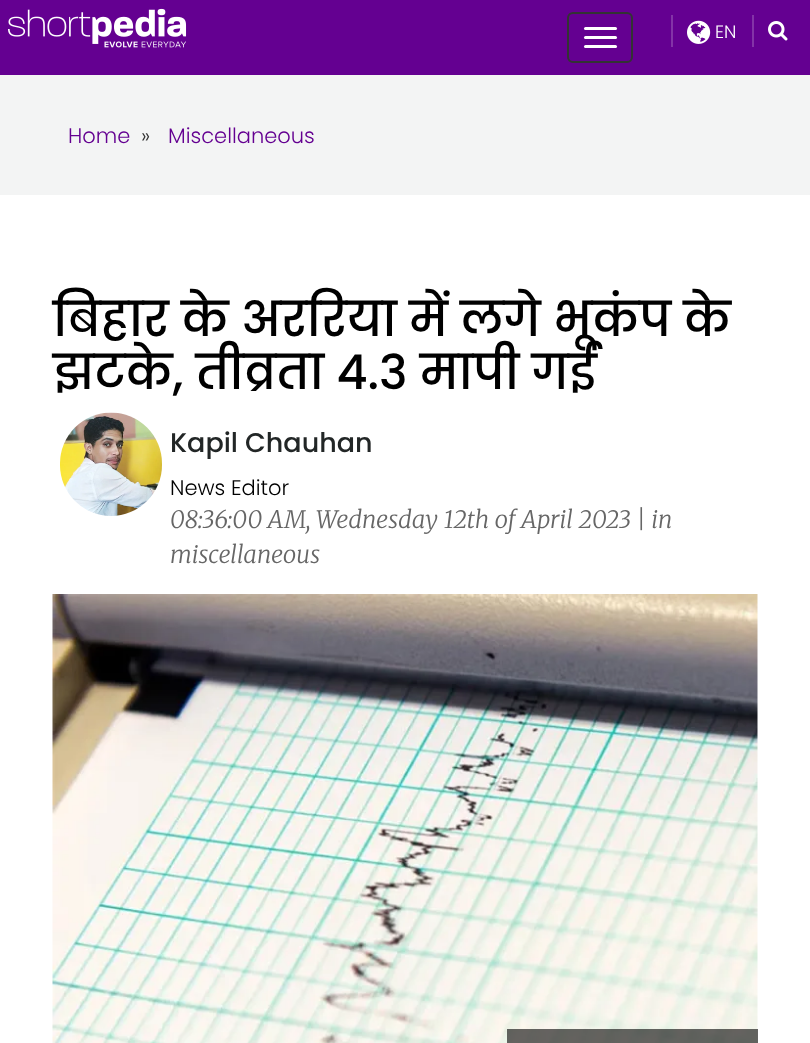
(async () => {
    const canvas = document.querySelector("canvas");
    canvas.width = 810;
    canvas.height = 1043;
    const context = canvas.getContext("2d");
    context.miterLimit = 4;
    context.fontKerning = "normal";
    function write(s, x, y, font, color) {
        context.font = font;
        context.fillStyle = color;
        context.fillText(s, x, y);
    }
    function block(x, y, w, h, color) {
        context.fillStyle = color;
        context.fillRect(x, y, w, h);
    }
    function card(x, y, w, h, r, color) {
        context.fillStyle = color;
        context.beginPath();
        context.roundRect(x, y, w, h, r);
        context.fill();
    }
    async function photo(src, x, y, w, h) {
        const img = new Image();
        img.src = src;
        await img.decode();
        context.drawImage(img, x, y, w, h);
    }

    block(0, 0, 810, 1043, "rgb(255, 255, 255)");
    block(0, 0, 810, 75, "rgb(100, 0, 145)");
    await photo("media/1.png", 8, 8, 179, 40);
    context.beginPath();
    context.roundRect(568, 13, 64, 49, 5);
    context.strokeStyle = "rgb(51, 51, 51)";
    context.lineWidth = 2;
    context.stroke();
    card(584, 27, 33, 3, 1.5, "rgb(255, 255, 255)");
    card(584, 36, 33, 3, 1.5, "rgb(255, 255, 255)");
    card(584, 45, 33, 3, 1.5, "rgb(255, 255, 255)");
    block(752, 15, 2, 32, "rgb(131, 51, 167)");
    block(671, 15, 2, 32, "rgb(131, 51, 167)");
    await photo("media/2.png", 687, 20, 24, 24);
    write("EN", 715, 38, "300 18px Poppins", "rgb(255, 255, 255)");
    await photo("media/3.png", 768, 21, 20, 20);
    block(0, 75, 810, 120, "rgb(243, 244, 244)");
    write("Home", 68, 143, "300 21px Poppins", "rgb(100, 0, 145)");
    write("»", 141, 143, "300 21px Poppins", "rgb(51, 51, 51)");
    write("Miscellaneous", 168, 143, "300 21px Poppins", "rgb(100, 0, 145)");
    write("बिहार के अररिया में लगे भूकंप के", 53, 336, "500 48px Poppins", "rgb(0, 0, 0)");
    write("झटके, तीव्रता 4.3 मापी गई", 53, 389, "500 48px Poppins", "rgb(0, 0, 0)");
    await photo("media/4.png", 60, 412, 102, 104);
    write("Kapil Chauhan", 170, 452, "500 27px Poppins", "rgb(34, 38, 38)");
    write("News Editor", 170, 495, "300 21px Poppins", "rgb(0, 0, 0)");
    write("08:36:00 AM, Wednesday 12th of April 2023 | in", 170, 528, "italic 300 24px Merriweather", "rgb(102, 102, 102)");
    write("miscellaneous", 170, 563, "italic 300 24px Merriweather", "rgb(102, 102, 102)");
    await photo("media/5.png", 52, 594, 706, 449);
    block(507, 1029, 251, 14, "rgba(0, 0, 0, 0.6)");
})();
